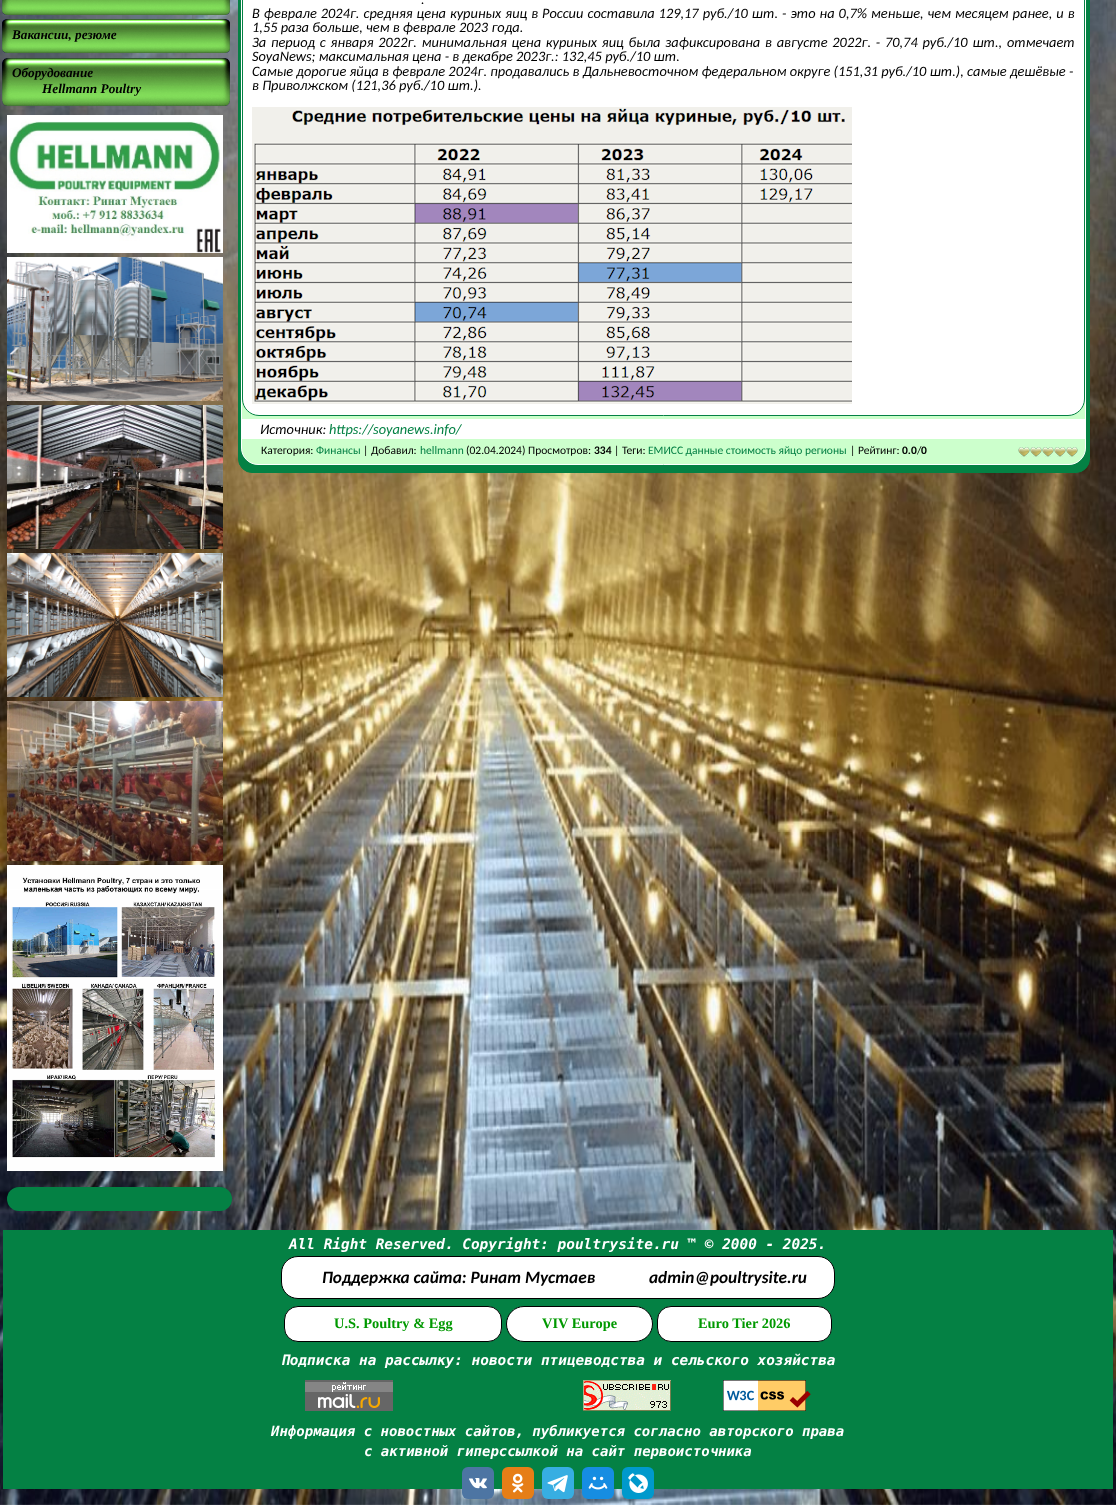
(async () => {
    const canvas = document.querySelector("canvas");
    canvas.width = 1116;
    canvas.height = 1505;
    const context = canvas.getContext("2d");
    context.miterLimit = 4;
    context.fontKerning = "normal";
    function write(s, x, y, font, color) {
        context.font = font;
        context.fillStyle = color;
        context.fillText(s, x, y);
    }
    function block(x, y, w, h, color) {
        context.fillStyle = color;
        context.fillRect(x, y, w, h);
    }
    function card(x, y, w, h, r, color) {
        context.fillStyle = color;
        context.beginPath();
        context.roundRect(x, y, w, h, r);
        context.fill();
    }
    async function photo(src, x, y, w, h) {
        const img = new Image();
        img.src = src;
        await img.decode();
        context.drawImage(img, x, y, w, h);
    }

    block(0, 0, 1116, 1505, "rgb(255, 255, 255)");
    await photo("media/1.png", 0, 0, 1116, 1505);
    await photo("media/2.png", 2, 0, 228, 15);
    await photo("media/3.png", 2, 19, 228, 34);
    write("Вакансии, резюме", 12, 39, "italic bold 13.25px Liberation Serif", "rgb(0, 0, 0)");
    await photo("media/4.png", 2, 58, 228, 48);
    write("Оборудование", 12, 77, "italic bold 13.25px Liberation Serif", "rgb(0, 0, 0)");
    write("Hellmann Poultry", 42, 93, "italic bold 13.25px Liberation Serif", "rgb(0, 0, 0)");
    await photo("media/5.png", 7, 115, 216, 138);
    await photo("media/6.png", 7, 257, 216, 144);
    await photo("media/7.png", 7, 405, 216, 144);
    await photo("media/8.png", 7, 553, 216, 144);
    await photo("media/9.png", 7, 701, 216, 160);
    await photo("media/10.png", 7, 865, 216, 306);
    card(7, 1187, 225, 24, 12, "rgb(4, 129, 68)");
    context.beginPath();
    context.roundRect(238.5, -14.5, 851, 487, 13.5);
    context.fill();
    context.strokeStyle = "rgb(4, 129, 68)";
    context.stroke();
    context.fillStyle = "rgb(204, 255, 204)";
    context.beginPath();
    context.moveTo(244, -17.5);
    context.lineTo(1083, -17.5);
    context.bezierCurveTo(1084.5, -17.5, 1085.5, -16.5, 1085.5, -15);
    context.lineTo(1085.5, 448);
    context.bezierCurveTo(1085.5, 457, 1078, 464.5, 1069, 464.5);
    context.lineTo(258, 464.5);
    context.bezierCurveTo(249, 464.5, 241.5, 457, 241.5, 448);
    context.lineTo(241.5, -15);
    context.bezierCurveTo(241.5, -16.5, 242.5, -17.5, 244, -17.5);
    context.closePath();
    context.fill();
    context.strokeStyle = "rgb(255, 255, 255)";
    context.stroke();
    context.fillStyle = "rgb(255, 255, 255)";
    context.beginPath();
    context.moveTo(245, -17.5);
    context.lineTo(1082, -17.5);
    context.bezierCurveTo(1083.5, -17.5, 1084.5, -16.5, 1084.5, -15);
    context.lineTo(1084.5, 399);
    context.bezierCurveTo(1084.5, 408, 1077, 415.5, 1068, 415.5);
    context.lineTo(259, 415.5);
    context.bezierCurveTo(250, 415.5, 242.5, 408, 242.5, 399);
    context.lineTo(242.5, -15);
    context.bezierCurveTo(242.5, -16.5, 243.5, -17.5, 245, -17.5);
    context.closePath();
    context.fill();
    context.strokeStyle = "rgb(4, 129, 68)";
    context.stroke();
    write(".", 421, 4, "italic 14.4px Carlito", "rgb(0, 0, 0)");
    context.wordSpacing = "0.75px";
    write("В феврале 2024г. средняя цена куриных яиц в России составила 129,17 руб./10 шт. - это на 0,7% меньше, чем месяцем ранее, и в", 252, 18, "italic 14.4px Carlito", "rgb(0, 0, 0)");
    context.wordSpacing = "0px";
    write("1,55 раза больше, чем в феврале 2023 года.", 252, 32, "italic 14.4px Carlito", "rgb(0, 0, 0)");
    context.wordSpacing = "1.5px";
    write("За период с января 2022г. минимальная цена куриных яиц была зафиксирована в августе 2022г. - 70,74 руб./10 шт., отмечает", 252, 47, "italic 14.4px Carlito", "rgb(0, 0, 0)");
    context.wordSpacing = "0px";
    write("SoyaNews; максимальная цена - в декабре 2023г.: 132,45 руб./10 шт.", 252, 61, "italic 14.4px Carlito", "rgb(0, 0, 0)");
    write("Самые дорогие яйца в феврале 2024г. продавались в Дальневосточном федеральном округе (151,31 руб./10 шт.), самые дешёвые -", 252, 76, "italic 14.4px Carlito", "rgb(0, 0, 0)");
    write("в Приволжском (121,36 руб./10 шт.).", 252, 90, "italic 14.4px Carlito", "rgb(0, 0, 0)");
    await photo("media/11.png", 252, 107, 600, 297);
    block(242, 419, 843, 20, "rgb(255, 255, 255)");
    write("Источник:", 260, 434, "italic 14.4px Carlito", "rgb(0, 0, 0)");
    write("https://soyanews.info/", 329, 434, "italic 14.4px Carlito", "rgb(4, 129, 68)");
    write("Категория:", 261, 454, "11.5px Carlito", "rgb(0, 0, 0)");
    write("Финансы", 316, 454, "11.5px Carlito", "rgb(4, 129, 68)");
    write("| Добавил:", 363, 454, "11.5px Carlito", "rgb(0, 0, 0)");
    write("hellmann", 420, 454, "11.5px Carlito", "rgb(4, 129, 68)");
    write("(02.04.2024) Просмотров:", 466, 454, "11.5px Carlito", "rgb(0, 0, 0)");
    write("334", 594, 454, "bold 11.5px Carlito", "rgb(0, 0, 0)");
    write("| Теги:", 614, 454, "11.5px Carlito", "rgb(0, 0, 0)");
    write("ЕМИСС данные стоимость яйцо регионы", 648, 454, "11.5px Carlito", "rgb(4, 129, 68)");
    write("| Рейтинг:", 850, 454, "11.5px Carlito", "rgb(0, 0, 0)");
    write("0.0", 902, 454, "bold 11.5px Carlito", "rgb(0, 0, 0)");
    write("/", 917, 454, "11.5px Carlito", "rgb(0, 0, 0)");
    write("0", 921, 454, "bold 11.5px Carlito", "rgb(0, 0, 0)");
    await photo("media/12.png", 1018, 447, 60, 10);
    block(3, 1230, 1110, 259, "rgb(4, 129, 68)");
    write("All Right Reserved. Copyright: poultrysite.ru ™ © 2000 - 2025.", 289, 1249, "italic bold 14.4px DejaVu Sans Mono", "rgb(255, 255, 255)");
    context.beginPath();
    context.roundRect(281.5, 1256.5, 553, 42, 16.5);
    context.fill();
    context.strokeStyle = "rgb(0, 0, 0)";
    context.stroke();
    write("Поддержка сайта: Ринат Мустаев", 322, 1283, "italic bold 17.25px Carlito", "rgb(0, 0, 0)");
    write("admin@poultrysite.ru", 649, 1283, "italic bold 17.25px Carlito", "rgb(0, 0, 0)");
    context.fillStyle = "rgb(255, 255, 255)";
    context.beginPath();
    context.roundRect(284.5, 1306.5, 217, 35, 13.5);
    context.fill();
    context.stroke();
    write("U.S. Poultry & Egg", 334, 1328, "bold 14.4px Liberation Serif", "rgb(0, 153, 0)");
    context.fillStyle = "rgb(255, 255, 255)";
    context.beginPath();
    context.roundRect(506.5, 1306.5, 146, 35, 17.5);
    context.fill();
    context.stroke();
    write("VIV Europe", 542, 1328, "bold 14.4px Liberation Serif", "rgb(0, 153, 0)");
    context.fillStyle = "rgb(255, 255, 255)";
    context.beginPath();
    context.roundRect(657.5, 1306.5, 174, 35, 13.5);
    context.fill();
    context.stroke();
    write("Euro Tier 2026", 698, 1328, "bold 14.4px Liberation Serif", "rgb(0, 153, 0)");
    write("Подписка на рассылку: новости птицеводства и сельского хозяйства", 281, 1365, "italic bold 14.4px DejaVu Sans Mono", "rgb(255, 255, 255)");
    await photo("media/13.png", 305, 1380, 88, 31);
    await photo("media/14.png", 583, 1380, 88, 31);
    await photo("media/15.png", 723, 1380, 88, 31);
    write("Информация с новостных сайтов, публикуется согласно авторского права", 271, 1436, "italic bold 14px DejaVu Sans Mono", "rgb(255, 255, 255)");
    write("с активной гиперссылкой на сайт первоисточника", 364, 1456, "italic bold 14px DejaVu Sans Mono", "rgb(255, 255, 255)");
    card(462, 1467, 32, 32, 6, "rgb(77, 117, 163)");
    await photo("media/16.png", 469, 1478, 18, 11);
    card(502, 1467, 32, 32, 6, "rgb(230, 126, 23)");
    await photo("media/17.png", 512, 1473, 12, 20);
    card(542, 1467, 32, 32, 6, "rgb(55, 174, 226)");
    await photo("media/18.png", 547, 1475, 21, 18);
    card(582, 1467, 32, 32, 6, "rgb(22, 141, 226)");
    await photo("media/19.png", 588, 1476, 20, 14);
    card(622, 1467, 32, 32, 6, "rgb(0, 153, 204)");
    await photo("media/20.png", 628, 1473, 20, 20);
})();
